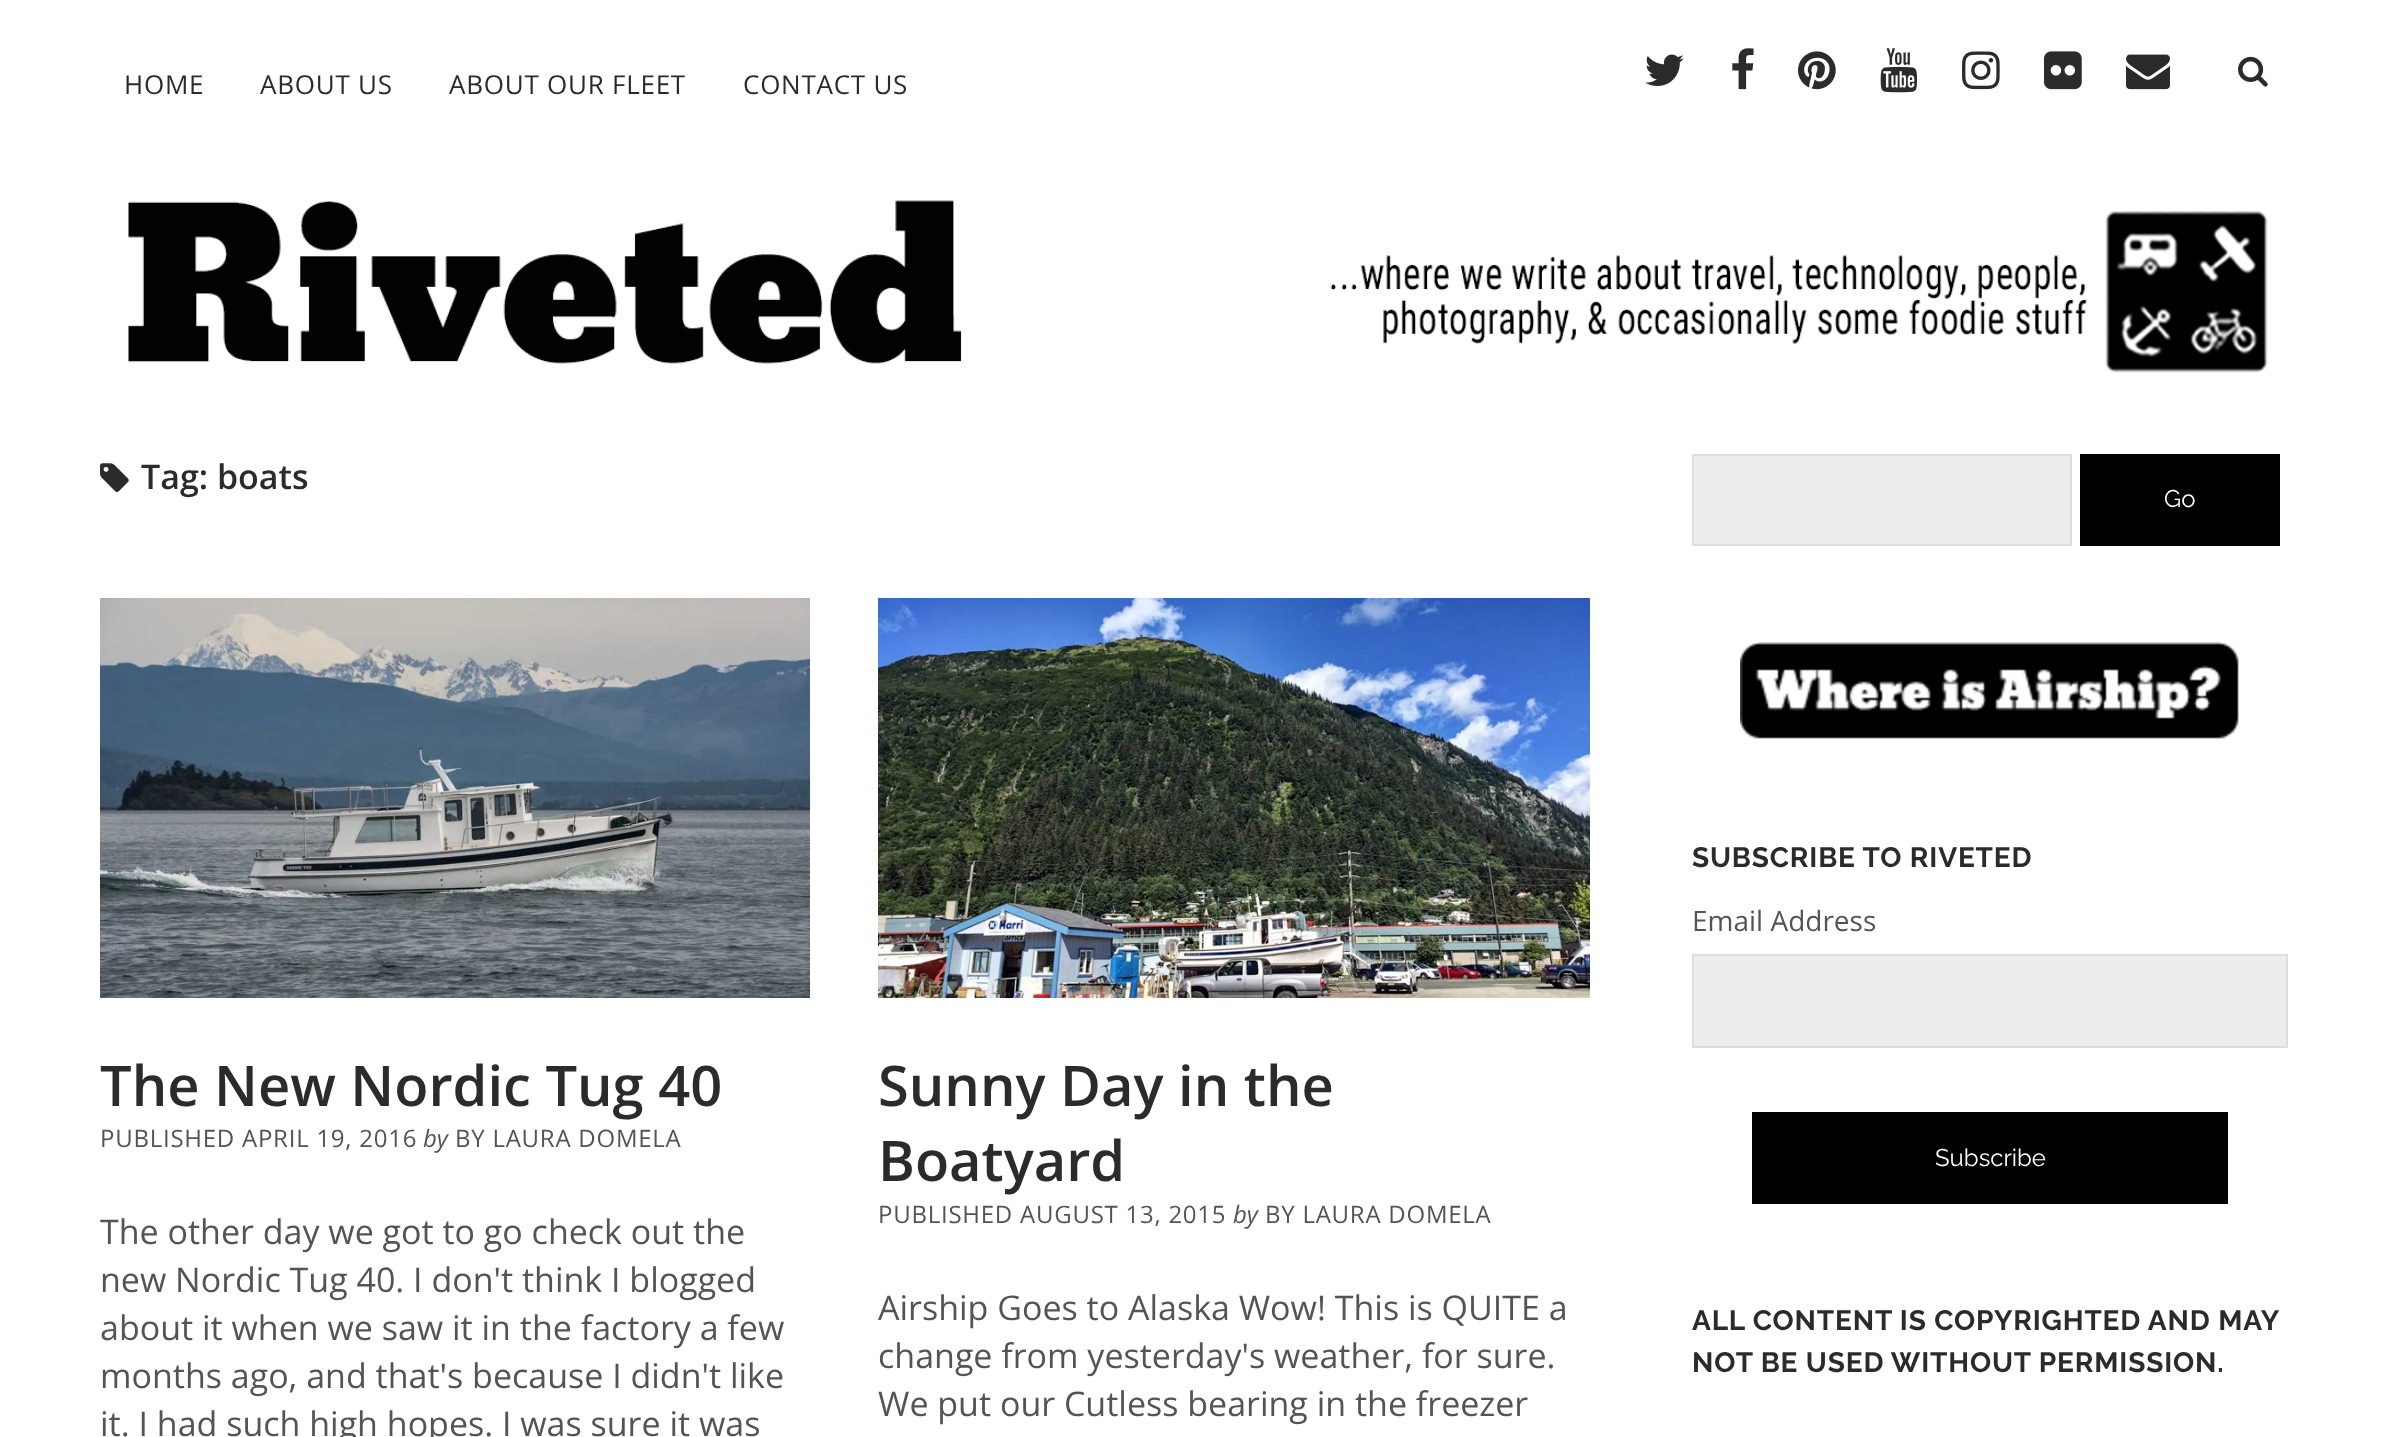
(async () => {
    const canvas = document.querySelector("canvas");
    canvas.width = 2388;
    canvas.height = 1437;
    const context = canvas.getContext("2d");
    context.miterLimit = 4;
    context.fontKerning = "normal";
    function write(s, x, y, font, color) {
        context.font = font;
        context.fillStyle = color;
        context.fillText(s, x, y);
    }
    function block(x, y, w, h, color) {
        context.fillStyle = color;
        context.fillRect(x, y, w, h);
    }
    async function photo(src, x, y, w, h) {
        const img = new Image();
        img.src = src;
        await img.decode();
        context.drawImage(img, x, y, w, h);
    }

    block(0, 0, 2388, 1437, "rgb(255, 255, 255)");
    context.letterSpacing = "0.75px";
    write("HOME", 124, 94, "26px Open Sans", "rgb(43, 43, 43)");
    write("ABOUT US", 260, 94, "26px Open Sans", "rgb(43, 43, 43)");
    write("ABOUT OUR FLEET", 449, 94, "26px Open Sans", "rgb(43, 43, 43)");
    write("CONTACT US", 743, 94, "26px Open Sans", "rgb(43, 43, 43)");
    await photo("media/1.png", 1645, 54, 39, 32);
    await photo("media/2.png", 1732, 48, 22, 42);
    await photo("media/3.png", 1798, 51, 38, 39);
    await photo("media/4.png", 1880, 48, 38, 45);
    await photo("media/5.png", 1962, 51, 38, 39);
    await photo("media/6.png", 2044, 51, 38, 39);
    await photo("media/7.png", 2126, 54, 44, 36);
    await photo("media/8.png", 2238, 56, 30, 31);
    await photo("media/9.png", 128, 200, 2140, 173);
    await photo("media/10.png", 100, 463, 29, 29);
    context.letterSpacing = "0px";
    write("Tag: boats", 141, 489, "600 34px Open Sans", "rgb(43, 43, 43)");
    await photo("media/11.png", 100, 598, 710, 400);
    write("The New Nordic Tug 40", 100, 1106, "600 56px Open Sans", "rgb(43, 43, 43)");
    context.letterSpacing = "0.75px";
    write("PUBLISHED APRIL 19, 2016", 100, 1147, "24px Open Sans", "rgb(84, 84, 84)");
    context.letterSpacing = "0px";
    write("by", 423, 1147, "italic 24px Open Sans", "rgb(84, 84, 84)");
    context.letterSpacing = "0.75px";
    write("BY LAURA DOMELA", 455, 1147, "24px Open Sans", "rgb(84, 84, 84)");
    context.letterSpacing = "0px";
    write("The other day we got to go check out the", 100, 1244, "34px Open Sans", "rgb(84, 84, 84)");
    write("new Nordic Tug 40. I don't think I blogged", 100, 1292, "34px Open Sans", "rgb(84, 84, 84)");
    write("about it when we saw it in the factory a few", 100, 1340, "34px Open Sans", "rgb(84, 84, 84)");
    write("months ago, and that's because I didn't like", 100, 1388, "34px Open Sans", "rgb(84, 84, 84)");
    write("it. I had such high hopes. I was sure it was", 100, 1436, "34px Open Sans", "rgb(84, 84, 84)");
    await photo("media/12.png", 878, 598, 712, 400);
    write("Sunny Day in the", 878, 1106, "600 56px Open Sans", "rgb(43, 43, 43)");
    write("Boatyard", 878, 1181, "600 56px Open Sans", "rgb(43, 43, 43)");
    context.letterSpacing = "0.75px";
    write("PUBLISHED AUGUST 13, 2015", 878, 1223, "24px Open Sans", "rgb(84, 84, 84)");
    context.letterSpacing = "0px";
    write("by", 1233, 1223, "italic 24px Open Sans", "rgb(84, 84, 84)");
    context.letterSpacing = "0.75px";
    write("BY LAURA DOMELA", 1265, 1223, "24px Open Sans", "rgb(84, 84, 84)");
    context.letterSpacing = "0px";
    write("Airship Goes to Alaska Wow! This is QUITE a", 878, 1320, "34px Open Sans", "rgb(84, 84, 84)");
    write("change from yesterday's weather, for sure.", 878, 1368, "34px Open Sans", "rgb(84, 84, 84)");
    write("We put our Cutless bearing in the freezer", 878, 1416, "34px Open Sans", "rgb(84, 84, 84)");
    context.fillStyle = "rgb(237, 237, 237)";
    context.beginPath();
    context.rect(1693, 455, 378, 90);
    context.fill();
    context.strokeStyle = "rgb(222, 222, 222)";
    context.lineWidth = 2;
    context.stroke();
    block(2080, 454, 200, 92, "rgb(0, 0, 0)");
    write("Go", 2164, 507, "24px Raleway", "rgb(255, 255, 255)");
    await photo("media/13.png", 1740, 642, 499, 97);
    context.letterSpacing = "0.85px";
    write("SUBSCRIBE TO RIVETED", 1692, 867, "bold 28px Raleway", "rgb(43, 43, 43)");
    context.letterSpacing = "0px";
    write("Email Address", 1692, 931, "28px Open Sans", "rgb(84, 84, 84)");
    context.fillStyle = "rgb(237, 237, 237)";
    context.beginPath();
    context.rect(1693, 955, 594, 92);
    context.fill();
    context.stroke();
    block(1752, 1112, 476, 92, "rgb(0, 0, 0)");
    write("Subscribe", 1935, 1166, "24px Raleway", "rgb(255, 255, 255)");
    context.letterSpacing = "0.85px";
    write("ALL CONTENT IS COPYRIGHTED AND MAY", 1692, 1330, "bold 28px Raleway", "rgb(43, 43, 43)");
    write("NOT BE USED WITHOUT PERMISSION.", 1692, 1372, "bold 28px Raleway", "rgb(43, 43, 43)");
})();
